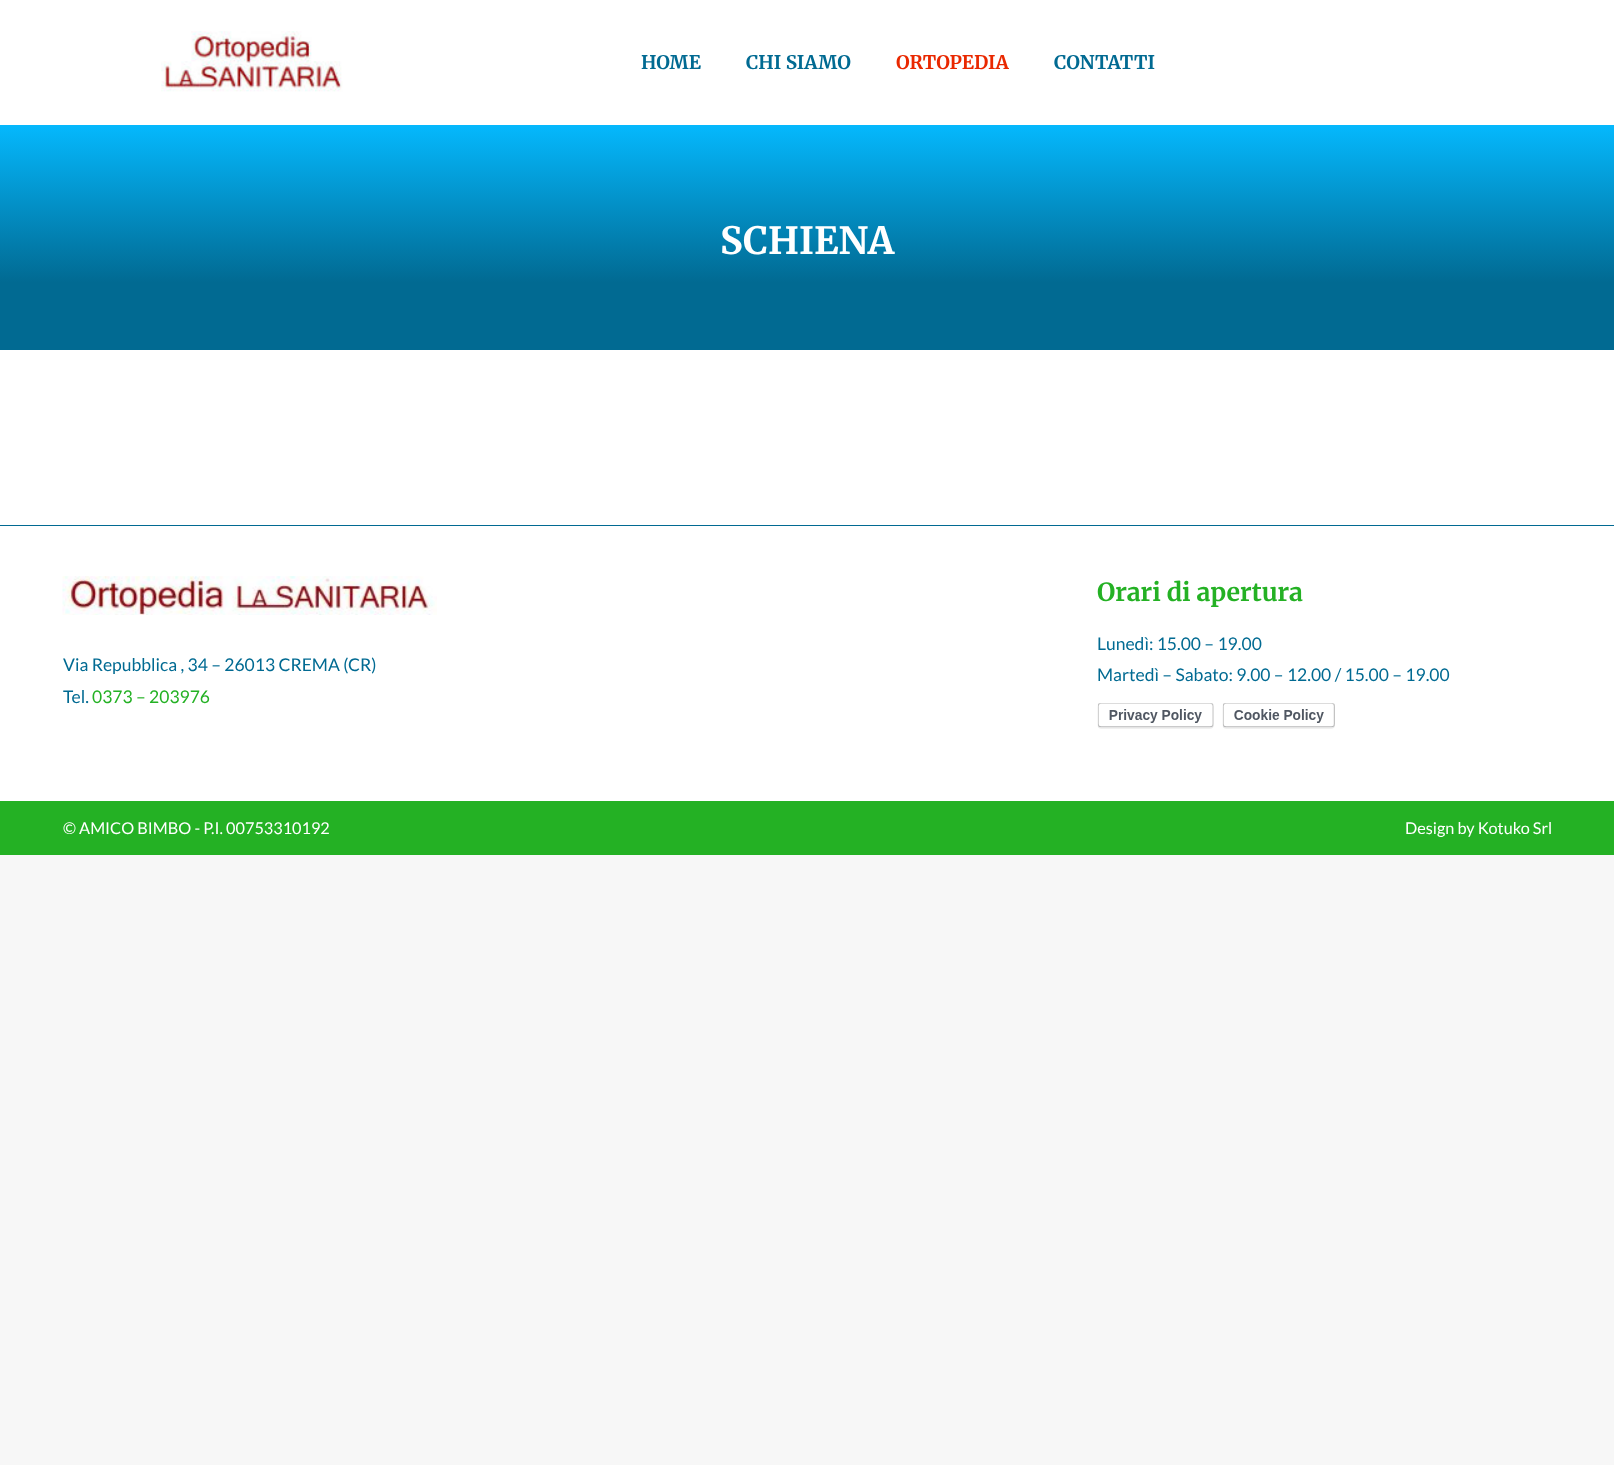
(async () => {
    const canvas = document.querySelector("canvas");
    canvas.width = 1614;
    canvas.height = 1465;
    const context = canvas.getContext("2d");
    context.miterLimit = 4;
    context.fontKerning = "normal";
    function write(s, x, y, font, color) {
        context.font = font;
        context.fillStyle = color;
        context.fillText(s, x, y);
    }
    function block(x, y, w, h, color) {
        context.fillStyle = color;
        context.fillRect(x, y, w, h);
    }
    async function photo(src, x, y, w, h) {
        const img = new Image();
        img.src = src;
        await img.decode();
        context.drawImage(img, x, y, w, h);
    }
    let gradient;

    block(0, 0, 1614, 1465, "rgb(247, 247, 247)");
    block(0, 0, 1614, 801, "rgb(255, 255, 255)");
    await photo("media/1.png", 161, 31, 182, 61);
    write("HOME", 641, 69, "bold 18.75px Merriweather", "rgb(1, 106, 146)");
    write("CHI SIAMO", 746, 69, "bold 18.75px Merriweather", "rgb(1, 106, 146)");
    write("ORTOPEDIA", 896, 69, "bold 18.75px Merriweather", "rgb(233, 40, 0)");
    write("CONTATTI", 1054, 69, "bold 18.75px Merriweather", "rgb(1, 106, 146)");
    gradient = context.createLinearGradient(808, 350, 808, 125);
    gradient.addColorStop(0.3, "rgb(1, 106, 146)");
    gradient.addColorStop(1, "rgb(5, 184, 253)");
    context.fillStyle = gradient;
    context.fillRect(0, 125, 1614, 225);
    write("SCHIENA", 720, 254, "bold 37.5px Merriweather", "rgb(255, 255, 255)");
    block(0, 525, 1614, 1, "rgb(1, 106, 146)");
    await photo("media/2.png", 62, 576, 375, 39);
    write("Via Repubblica , 34 – 26013 CREMA (CR)", 63, 671, "17.5px Lato", "rgb(1, 106, 146)");
    write("Tel.", 63, 703, "17.5px Lato", "rgb(1, 106, 146)");
    write("0373 – 203976", 92, 703, "17.5px Lato", "rgb(36, 177, 36)");
    write("Orari di apertura", 1097, 601, "bold 25px Merriweather", "rgb(36, 177, 36)");
    write("Lunedì: 15.00 – 19.00", 1097, 650, "17.5px Lato", "rgb(1, 106, 146)");
    write("Martedì – Sabato: 9.00 – 12.00 / 15.00 – 19.00", 1097, 681, "17.5px Lato", "rgb(1, 106, 146)");
    await photo("media/3.png", 1097, 703, 117, 26);
    await photo("media/4.png", 1222, 703, 113, 26);
    block(0, 801, 1614, 54, "rgb(36, 177, 36)");
    write("© AMICO BIMBO - P.I. 00753310192", 63, 834, "16.25px Lato", "rgb(255, 255, 255)");
    write("Design by Kotuko Srl", 1405, 834, "16.25px Lato", "rgb(255, 255, 255)");
})();
